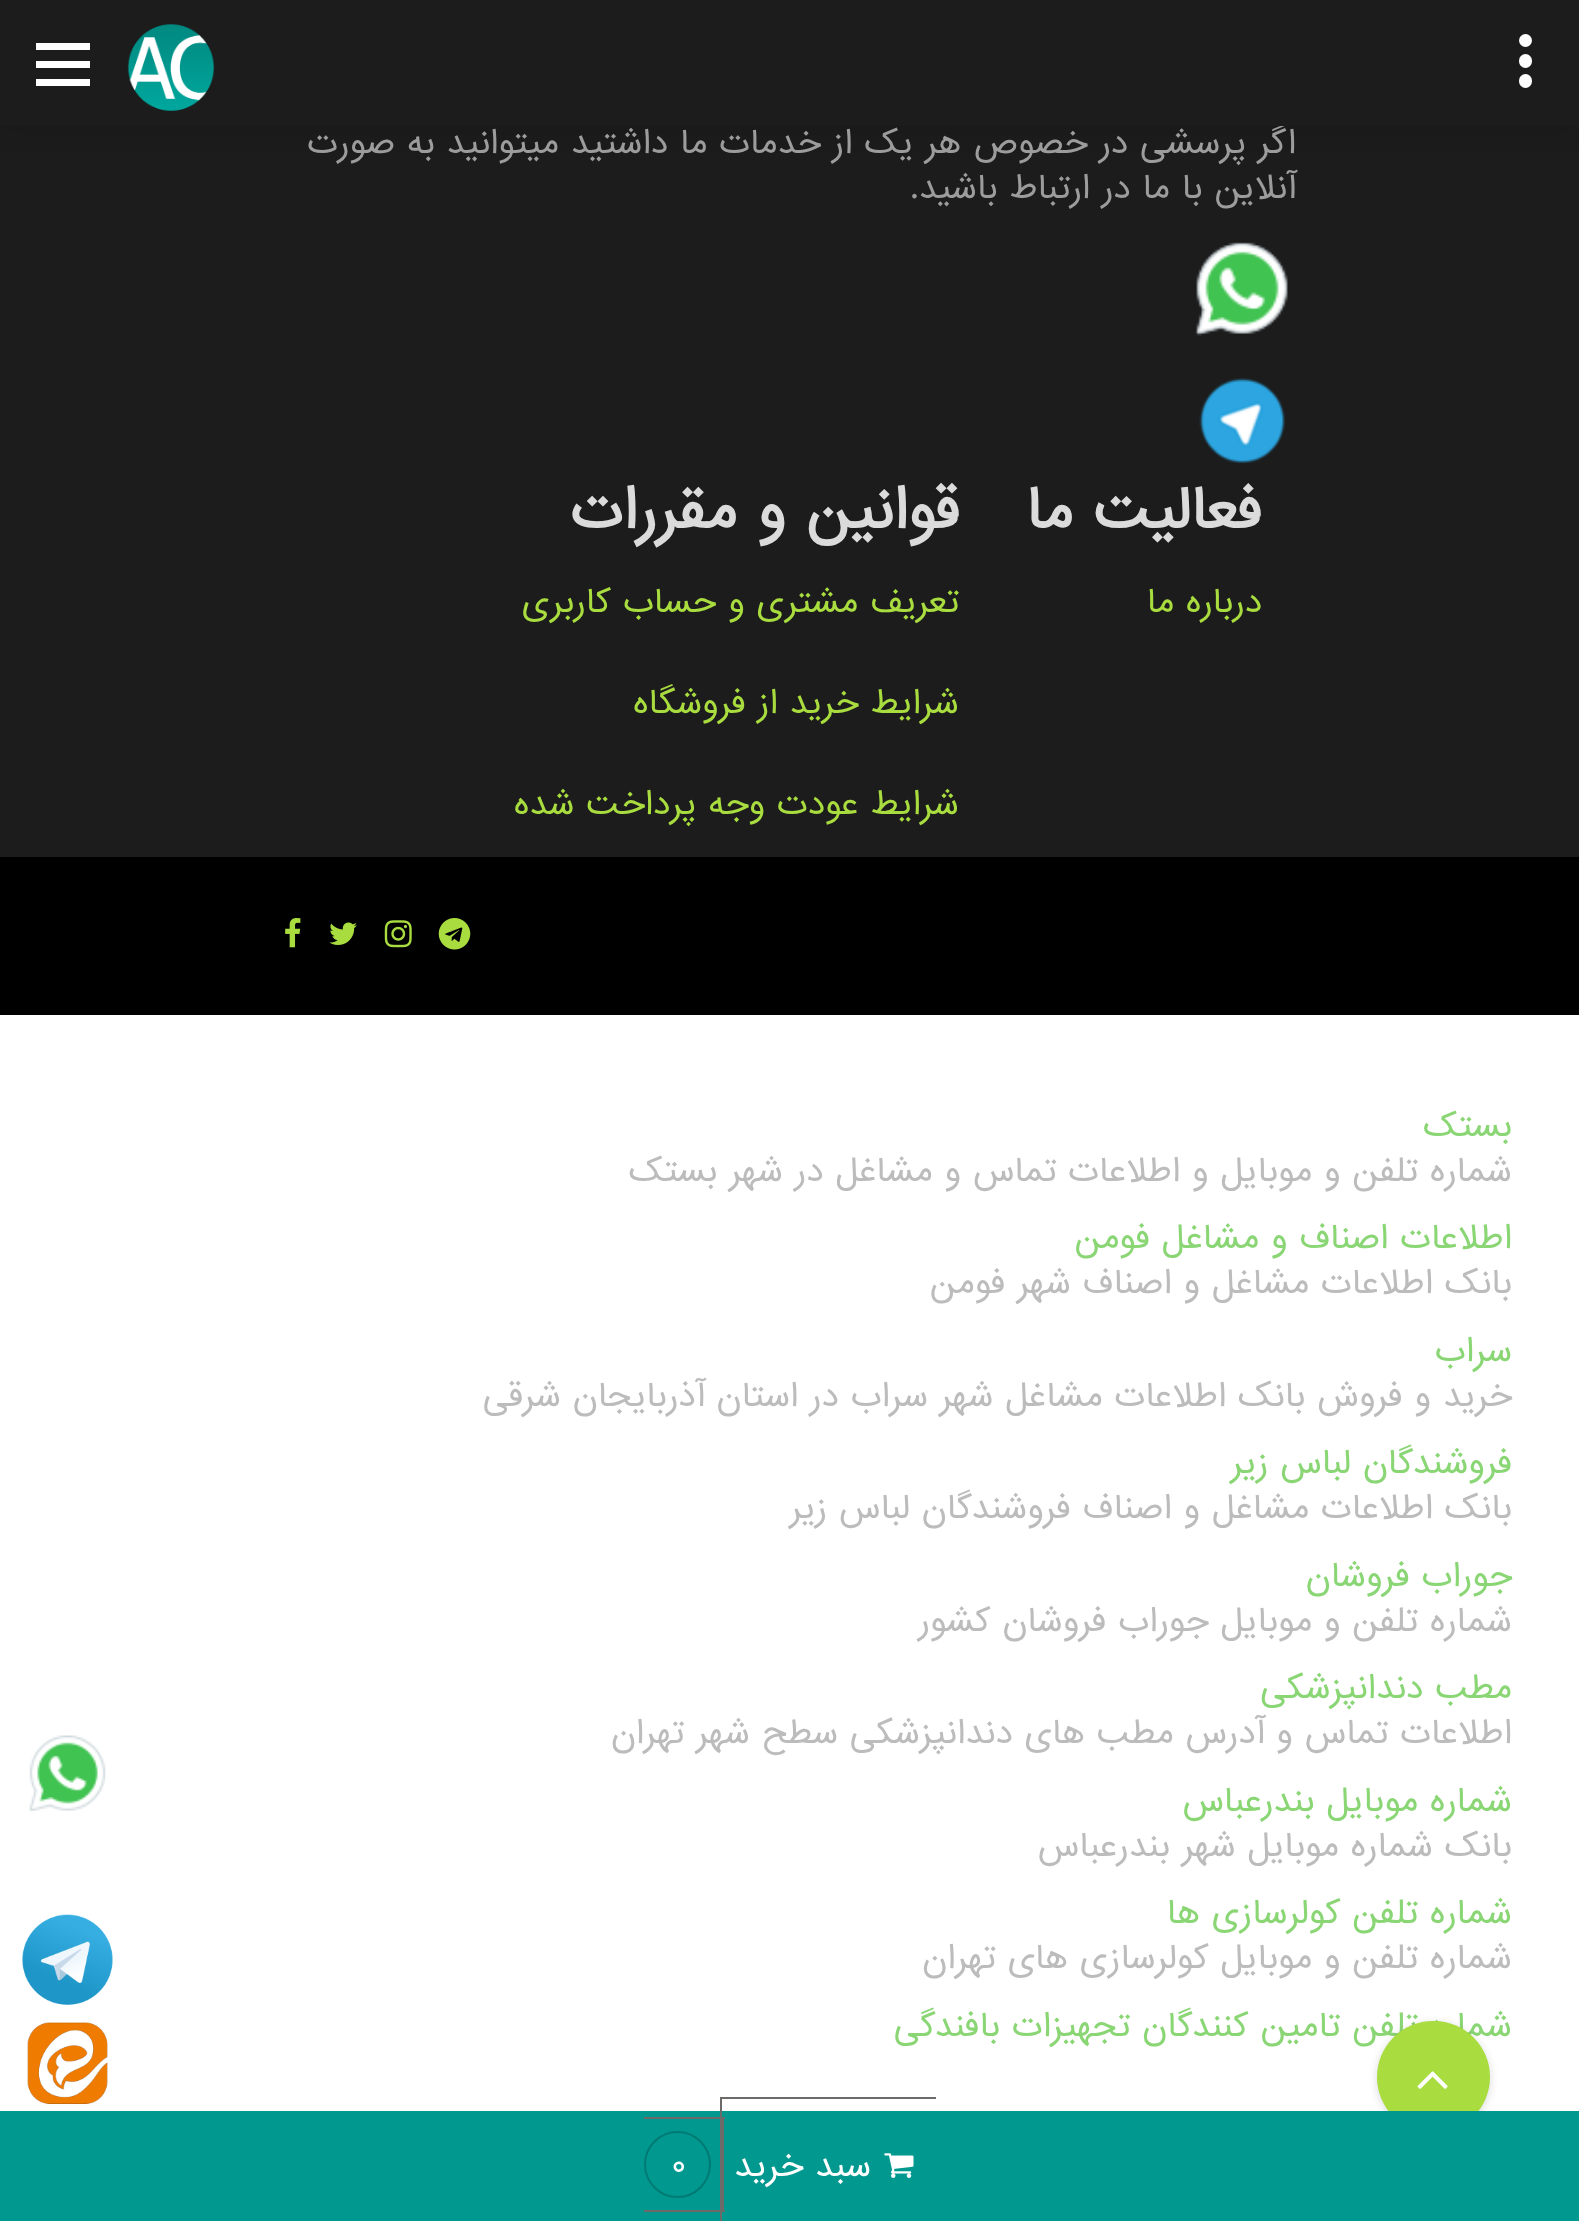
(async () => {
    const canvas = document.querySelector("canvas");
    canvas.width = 1579;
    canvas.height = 2221;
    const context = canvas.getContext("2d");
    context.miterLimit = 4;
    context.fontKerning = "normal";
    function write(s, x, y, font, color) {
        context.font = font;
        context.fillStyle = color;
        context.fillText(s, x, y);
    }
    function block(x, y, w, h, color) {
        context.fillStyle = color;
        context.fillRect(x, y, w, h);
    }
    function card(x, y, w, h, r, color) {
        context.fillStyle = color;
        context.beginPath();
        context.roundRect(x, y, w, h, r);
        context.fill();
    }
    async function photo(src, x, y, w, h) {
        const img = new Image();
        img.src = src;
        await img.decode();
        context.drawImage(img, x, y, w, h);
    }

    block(0, 0, 1579, 2221, "rgb(255, 255, 255)");
    block(0, 126, 1579, 731, "rgb(28, 28, 28)");
    context.fillStyle = "rgba(0, 0, 0, 0.17)";
    context.filter = "blur(14.5px)";
    context.beginPath();
    context.rect(2, 2, 1575, 122);
    context.fill();
    context.filter = "none";
    context.direction = "rtl";
    write("اگر پرسشی در خصوص هر یک از خدمات ما داشتید میتوانید به صورت", 1296, 153, "31.5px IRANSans", "rgb(156, 156, 156)");
    block(0, 0, 1579, 126, "rgb(28, 28, 28)");
    await photo("media/1.png", 127, 24, 88, 87);
    block(36, 61, 54, 7, "rgb(255, 255, 255)");
    block(36, 43, 54, 7, "rgb(255, 255, 255)");
    block(36, 79, 54, 7, "rgb(255, 255, 255)");
    card(1519, 54, 13, 14, 6.5, "rgb(255, 255, 255)");
    context.beginPath();
    context.arc(1525.5, 40.5, 6.5, 0, Math.PI * 2);
    context.fill();
    card(1519, 74, 13, 14, 6.5, "rgb(255, 255, 255)");
    write("آنلاین با ما در ارتباط باشید.", 1296, 198, "31.5px IRANSans", "rgb(156, 156, 156)");
    await photo("media/2.png", 1195, 242, 93, 94);
    await photo("media/3.png", 1199, 378, 86, 86);
    write("فعالیت ما", 1262, 528, "bold 54px IRANSans", "rgb(219, 219, 219)");
    write("درباره ما", 1262, 612, "31.5px IRANSans", "rgb(168, 220, 63)");
    write("قوانین و مقررات", 959, 528, "bold 54px IRANSans", "rgb(219, 219, 219)");
    write("تعریف مشتری و حساب کاربری", 959, 612, "31.5px IRANSans", "rgb(168, 220, 63)");
    write("شرایط خرید از فروشگاه", 959, 713, "31.5px IRANSans", "rgb(168, 220, 63)");
    write("شرایط عودت وجه پرداخت شده", 959, 814, "31.5px IRANSans", "rgb(168, 220, 63)");
    block(0, 857, 1579, 158, "rgb(0, 0, 0)");
    await photo("media/4.png", 438, 918, 33, 32);
    await photo("media/5.png", 384, 920, 28, 28);
    await photo("media/6.png", 329, 922, 28, 23);
    await photo("media/7.png", 285, 918, 16, 30);
    write("بستک", 1512, 1136, "31.5px IRANSans", "rgb(138, 214, 117)");
    write("شماره تلفن و موبایل و اطلاعات تماس و مشاغل در شهر بستک", 1512, 1181, "31.5px IRANSans", "rgb(188, 188, 188)");
    write("اطلاعات اصناف و مشاغل فومن", 1512, 1248, "31.5px IRANSans", "rgb(138, 214, 117)");
    write("بانک اطلاعات مشاغل و اصناف شهر فومن", 1512, 1293, "31.5px IRANSans", "rgb(188, 188, 188)");
    write("سراب", 1512, 1361, "31.5px IRANSans", "rgb(138, 214, 117)");
    write("خرید و فروش بانک اطلاعات مشاغل شهر سراب در استان آذربایجان شرقی", 1512, 1406, "31.5px IRANSans", "rgb(188, 188, 188)");
    write("فروشندگان لباس زیر", 1512, 1473, "31.5px IRANSans", "rgb(138, 214, 117)");
    write("بانک اطلاعات مشاغل و اصناف فروشندگان لباس زیر", 1512, 1518, "31.5px IRANSans", "rgb(188, 188, 188)");
    write("جوراب فروشان", 1512, 1586, "31.5px IRANSans", "rgb(138, 214, 117)");
    write("شماره تلفن و موبایل جوراب فروشان کشور", 1512, 1631, "31.5px IRANSans", "rgb(188, 188, 188)");
    write("مطب دندانپزشکی", 1512, 1698, "31.5px IRANSans", "rgb(138, 214, 117)");
    write("اطلاعات تماس و آدرس مطب های دندانپزشکی سطح شهر تهران", 1512, 1743, "31.5px IRANSans", "rgb(188, 188, 188)");
    write("شماره موبایل بندرعباس", 1512, 1811, "31.5px IRANSans", "rgb(138, 214, 117)");
    write("بانک شماره موبایل شهر بندرعباس", 1512, 1856, "31.5px IRANSans", "rgb(188, 188, 188)");
    write("شماره تلفن کولرسازی ها", 1512, 1923, "31.5px IRANSans", "rgb(138, 214, 117)");
    write("شماره تلفن و موبایل کولرسازی های تهران", 1512, 1968, "31.5px IRANSans", "rgb(188, 188, 188)");
    write("شماره تلفن تامین کنندگان تجهیزات بافندگی", 1512, 2036, "31.5px IRANSans", "rgb(138, 214, 117)");
    await photo("media/8.png", 29, 1735, 77, 78);
    await photo("media/9.png", 22, 1914, 91, 91);
    context.fillStyle = "rgba(0, 0, 0, 0.15)";
    context.filter = "blur(4.5px)";
    context.beginPath();
    context.roundRect(1377, 2023, 113, 112, 56);
    context.fill();
    context.filter = "none";
    card(1377, 2021, 113, 112, 56, "rgb(168, 220, 63)");
    await photo("media/10.png", 1417, 2071, 31, 18);
    await photo("media/11.png", 27, 2022, 81, 82);
    block(0, 2111, 1579, 110, "rgb(0, 152, 143)");
    block(720, 2097, 216, 2, "rgb(109, 106, 106)");
    block(720, 2097, 2, 124, "rgb(109, 106, 106)");
    block(644, 2117, 81, 2, "rgb(109, 106, 106)");
    block(722, 2117, 2, 95, "rgb(109, 106, 106)");
    block(644, 2210, 81, 2, "rgb(109, 106, 106)");
    await photo("media/12.png", 884, 2153, 30, 25);
    write("سبد خرید", 871, 2176, "31.5px IRANSans", "rgb(255, 255, 255)");
    context.beginPath();
    context.arc(677.5, 2164.5, 32.5, 0, Math.PI * 2);
    context.strokeStyle = "rgb(0, 123, 115)";
    context.lineWidth = 2;
    context.stroke();
    context.direction = "ltr";
    write("۰", 671, 2176, "31.5px IRANSans", "rgb(255, 255, 255)");
})();
